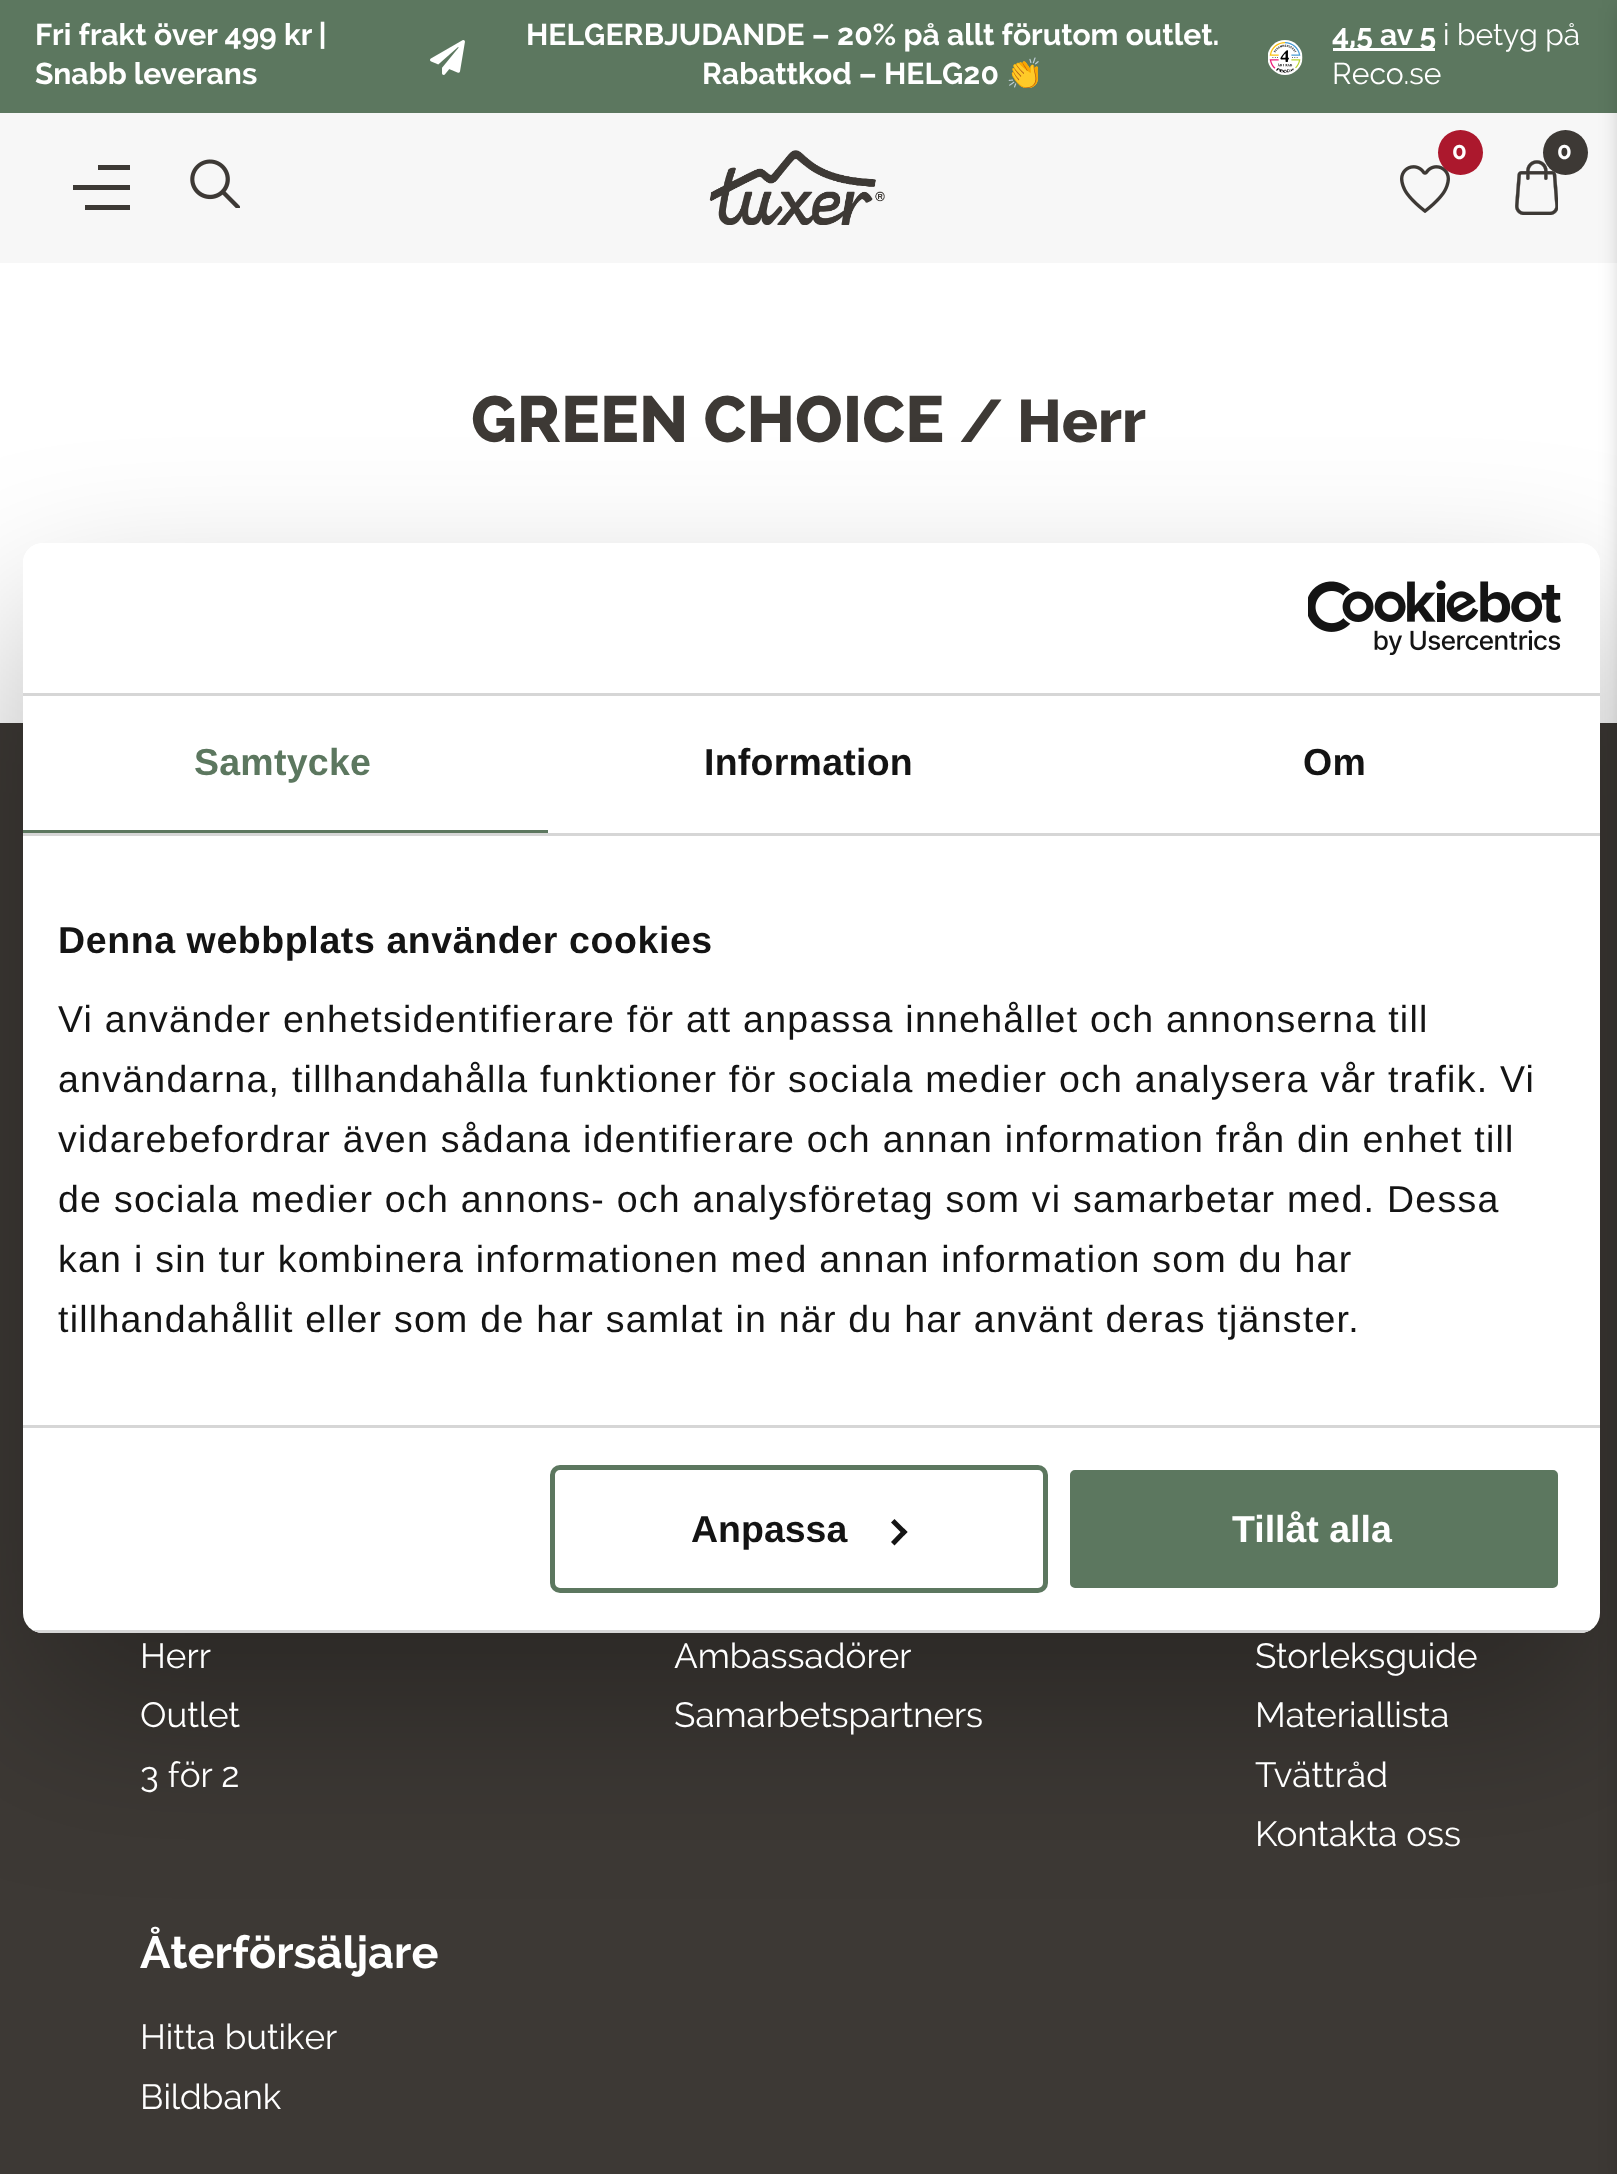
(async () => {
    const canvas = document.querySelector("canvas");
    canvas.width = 1617;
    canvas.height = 2174;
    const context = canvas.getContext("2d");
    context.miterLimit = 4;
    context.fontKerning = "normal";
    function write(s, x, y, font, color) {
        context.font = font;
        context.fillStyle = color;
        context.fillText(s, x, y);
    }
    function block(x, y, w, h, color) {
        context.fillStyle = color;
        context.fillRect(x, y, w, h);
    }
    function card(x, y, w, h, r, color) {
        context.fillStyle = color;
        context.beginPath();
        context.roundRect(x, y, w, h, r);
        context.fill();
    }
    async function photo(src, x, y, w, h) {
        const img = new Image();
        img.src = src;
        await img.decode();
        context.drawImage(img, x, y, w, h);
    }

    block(0, 0, 1617, 2174, "rgb(255, 255, 255)");
    block(0, 0, 1617, 113, "rgb(92, 119, 95)");
    write("Fri frakt över 499 kr |", 35, 45, "bold 30px Raleway", "rgb(255, 255, 255)");
    write("Snabb leverans", 35, 84, "bold 30px Raleway", "rgb(255, 255, 255)");
    await photo("media/1.png", 430, 40, 35, 35);
    write("HELGERBJUDANDE – 20% på allt förutom outlet.", 526, 45, "bold 30px Raleway", "rgb(255, 255, 255)");
    write("Rabattkod – HELG20", 702, 84, "bold 30px Raleway", "rgb(255, 255, 255)");
    write("👏", 1006, 84, "bold 30px Noto Color Emoji", "rgb(255, 255, 255)");
    await photo("media/2.png", 1268, 40, 35, 35);
    block(1333, 48, 102, 3, "rgb(255, 255, 255)");
    write("4,5 av 5", 1332, 45, "bold 30px Raleway", "rgb(255, 255, 255)");
    write("i betyg på", 1443, 45, "30px Raleway", "rgb(255, 255, 255)");
    write("Reco.se", 1332, 84, "30px Raleway", "rgb(255, 255, 255)");
    block(0, 113, 1617, 150, "rgb(247, 247, 247)");
    await photo("media/6.png", 1515, 160, 43, 55);
    context.fillStyle = "rgb(61, 57, 53)";
    context.beginPath();
    context.arc(1565.5, 152.5, 22.5, 0, Math.PI * 2);
    context.fill();
    block(0, 723, 1617, 1451, "rgb(61, 57, 53)");
    context.fillStyle = "rgba(0, 0, 0, 0.31)";
    context.filter = "blur(12.5px)";
    context.beginPath();
    context.rect(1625, 8, 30, 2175);
    context.fill();
    context.filter = "none";
    block(98, 165, 32, 5, "rgb(61, 57, 53)");
    block(73, 185, 57, 5, "rgb(61, 57, 53)");
    block(85, 205, 45, 5, "rgb(61, 57, 53)");
    await photo("media/3.png", 190, 159, 50, 49);
    await photo("media/4.png", 709, 150, 176, 75);
    await photo("media/5.png", 1400, 165, 50, 48);
    context.fillStyle = "rgb(172, 24, 45)";
    context.beginPath();
    context.arc(1460.5, 152.5, 22.5, 0, Math.PI * 2);
    context.fill();
    write("0", 1452, 159, "bold 24px Raleway", "rgb(255, 255, 255)");
    write("0", 1557, 159, "bold 24px Raleway", "rgb(255, 255, 255)");
    write("GREEN CHOICE", 471, 442, "800 65px Raleway", "rgb(61, 57, 53)");
    write("/ Herr", 959, 442, "800 60px Raleway", "rgb(61, 57, 53)");
    context.save();
    context.beginPath();
    context.moveTo(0, 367);
    context.lineTo(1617, 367);
    context.lineTo(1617, 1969);
    context.lineTo(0, 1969);
    context.closePath();
    context.moveTo(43, 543);
    context.lineTo(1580, 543);
    context.bezierCurveTo(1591, 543, 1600, 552, 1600, 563);
    context.lineTo(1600, 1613);
    context.bezierCurveTo(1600, 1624, 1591, 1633, 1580, 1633);
    context.lineTo(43, 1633);
    context.bezierCurveTo(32, 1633, 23, 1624, 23, 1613);
    context.lineTo(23, 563);
    context.bezierCurveTo(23, 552, 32, 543, 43, 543);
    context.closePath();
    context.clip("evenodd");
    context.fillStyle = "rgba(0, 0, 0, 0.3)";
    context.filter = "blur(85px)";
    context.beginPath();
    context.roundRect(23, 623, 1577, 1090, 20);
    context.fill();
    context.filter = "none";
    context.restore();
    card(23, 543, 1577, 1090, 20, "rgb(255, 255, 255)");
    block(23, 693, 1577, 3, "rgb(214, 214, 214)");
    await photo("media/7.png", 1308, 580, 253, 75);
    block(23, 833, 1577, 3, "rgb(214, 214, 214)");
    block(23, 830, 525, 3, "rgb(92, 119, 95)");
    context.letterSpacing = "0.25px";
    write("Samtycke", 194, 775, "bold 37.5px Liberation Sans", "rgb(92, 119, 95)");
    write("Information", 704, 775, "bold 37.5px Liberation Sans", "rgb(20, 20, 20)");
    write("Om", 1303, 775, "bold 37.5px Liberation Sans", "rgb(20, 20, 20)");
    block(23, 1425, 1577, 3, "rgb(214, 214, 214)");
    context.letterSpacing = "0.6px";
    write("Denna webbplats använder cookies", 58, 953, "bold 37.5px Liberation Sans", "rgb(20, 20, 20)");
    context.letterSpacing = "1.25px";
    write("Vi använder enhetsidentifierare för att anpassa innehållet och annonserna till", 58, 1032, "37.5px Liberation Sans", "rgb(20, 20, 20)");
    write("användarna, tillhandahålla funktioner för sociala medier och analysera vår trafik. Vi", 58, 1092, "37.5px Liberation Sans", "rgb(20, 20, 20)");
    write("vidarebefordrar även sådana identifierare och annan information från din enhet till", 58, 1152, "37.5px Liberation Sans", "rgb(20, 20, 20)");
    write("de sociala medier och annons- och analysföretag som vi samarbetar med. Dessa", 58, 1212, "37.5px Liberation Sans", "rgb(20, 20, 20)");
    write("kan i sin tur kombinera informationen med annan information som du har", 58, 1272, "37.5px Liberation Sans", "rgb(20, 20, 20)");
    write("tillhandahållit eller som de har samlat in när du har använt deras tjänster.", 58, 1332, "37.5px Liberation Sans", "rgb(20, 20, 20)");
    context.save();
    context.beginPath();
    context.roundRect(23, 543, 1577, 1090, 20);
    context.clip();
    block(32, 1630, 1559, 3, "rgb(214, 214, 214)");
    context.restore();
    context.beginPath();
    context.roundRect(552.5, 1467.5, 493, 123, 7.5);
    context.strokeStyle = "rgb(92, 119, 95)";
    context.lineWidth = 5;
    context.stroke();
    context.letterSpacing = "0px";
    write("Anpassa", 691, 1542, "bold 37.5px Liberation Sans", "rgb(20, 20, 20)");
    context.beginPath();
    context.moveTo(894.5, 1519);
    context.lineTo(907.5, 1532);
    context.lineTo(904, 1535.5);
    context.lineTo(891, 1522.5);
    context.closePath();
    context.fill();
    context.beginPath();
    context.moveTo(904, 1528.5);
    context.lineTo(907.5, 1532);
    context.lineTo(894.5, 1545.5);
    context.lineTo(891, 1542);
    context.closePath();
    context.fill();
    context.fillStyle = "rgb(92, 119, 95)";
    context.beginPath();
    context.roundRect(1067.5, 1467.5, 493, 123, 7.5);
    context.fill();
    context.strokeStyle = "rgb(255, 255, 255)";
    context.stroke();
    write("Tillåt alla", 1232, 1542, "bold 37.5px Liberation Sans", "rgb(255, 255, 255)");
    write("Herr", 140, 1668, "35px Raleway", "rgb(255, 255, 255)");
    write("Outlet", 140, 1727, "35px Raleway", "rgb(255, 255, 255)");
    write("3 för 2", 140, 1787, "35px Raleway", "rgb(255, 255, 255)");
    write("Ambassadörer", 674, 1668, "35px Raleway", "rgb(255, 255, 255)");
    write("Samarbetspartners", 674, 1727, "35px Raleway", "rgb(255, 255, 255)");
    write("Storleksguide", 1255, 1668, "35px Raleway", "rgb(255, 255, 255)");
    write("Materiallista", 1255, 1727, "35px Raleway", "rgb(255, 255, 255)");
    write("Tvättråd", 1255, 1787, "35px Raleway", "rgb(255, 255, 255)");
    write("Kontakta oss", 1255, 1846, "35px Raleway", "rgb(255, 255, 255)");
    write("Återförsäljare", 140, 1968, "bold 45px Raleway", "rgb(255, 255, 255)");
    write("Hitta butiker", 140, 2049, "35px Raleway", "rgb(255, 255, 255)");
    write("Bildbank", 140, 2109, "35px Raleway", "rgb(255, 255, 255)");
})();
